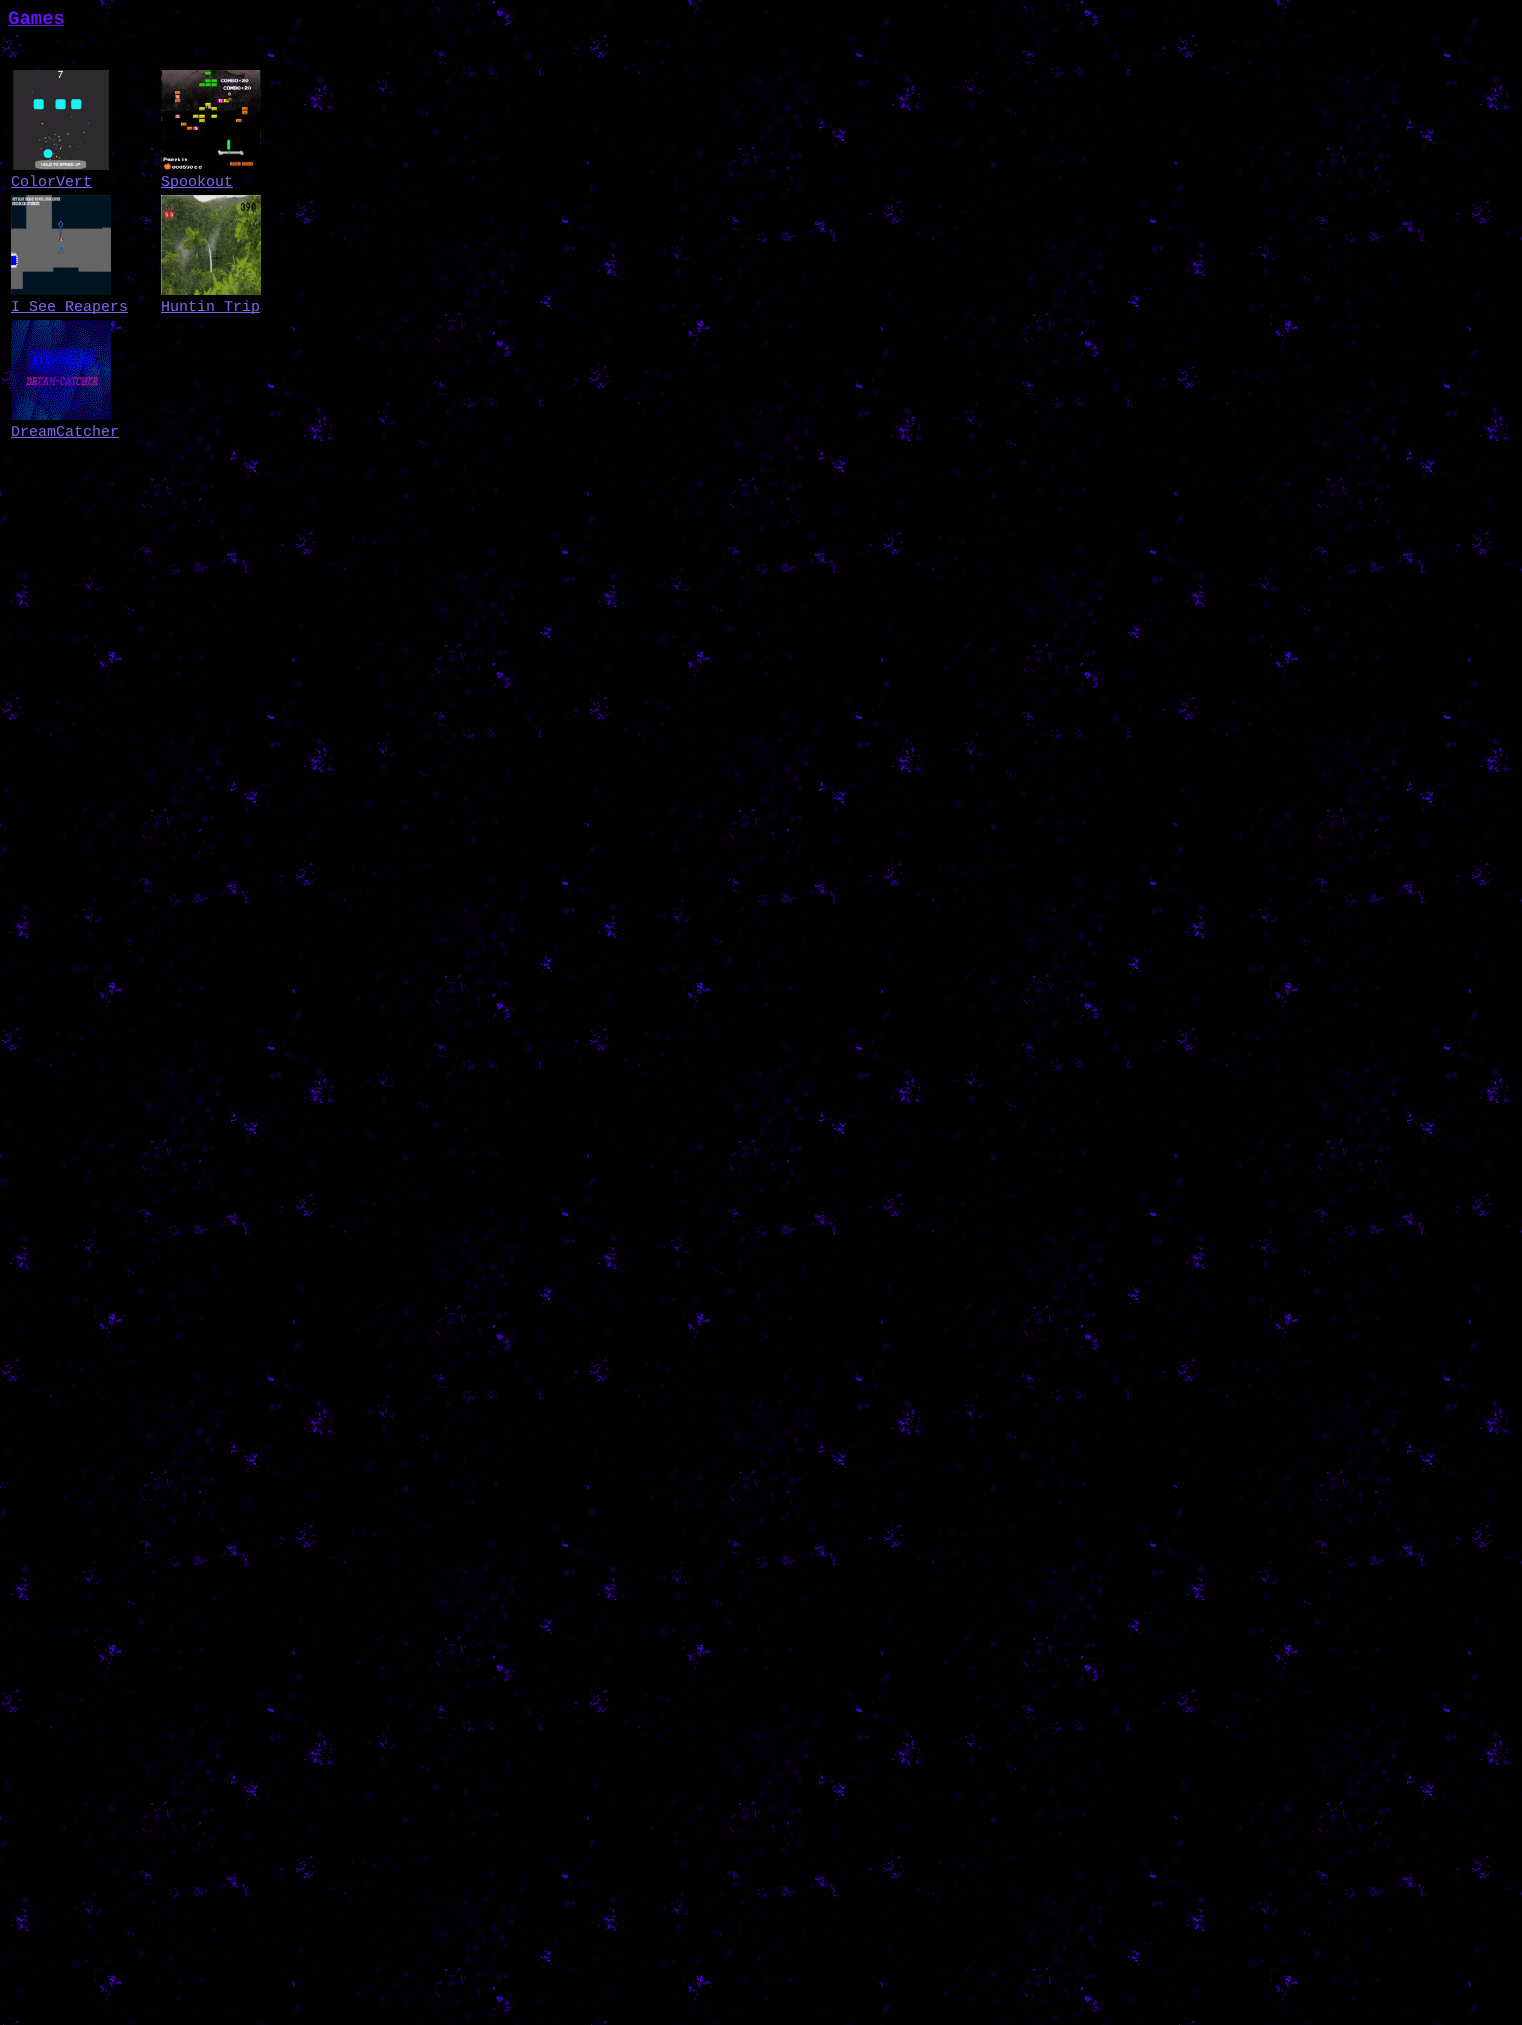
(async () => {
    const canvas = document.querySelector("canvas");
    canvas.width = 1522;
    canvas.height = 2025;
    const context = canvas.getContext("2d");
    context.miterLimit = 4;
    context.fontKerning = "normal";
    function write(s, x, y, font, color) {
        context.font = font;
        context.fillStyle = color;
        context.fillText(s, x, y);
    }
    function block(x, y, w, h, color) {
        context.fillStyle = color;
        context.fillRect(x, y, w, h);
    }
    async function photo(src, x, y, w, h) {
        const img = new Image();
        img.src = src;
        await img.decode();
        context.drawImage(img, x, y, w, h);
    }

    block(0, 0, 1522, 2025, "rgb(255, 255, 255)");
    await photo("media/1.png", 0, 0, 1522, 2025);
    write("Games", 8, 24, "bold 19px Liberation Mono", "rgb(101, 19, 249)");
    block(8, 25, 56, 1, "rgb(101, 19, 249)");
    await photo("media/2.png", 11, 70, 100, 100);
    await photo("media/3.png", 161, 70, 100, 100);
    write("ColorVert", 11, 186, "15px Liberation Mono", "rgb(123, 104, 238)");
    block(11, 187, 81, 1, "rgb(123, 104, 238)");
    block(161, 187, 72, 1, "rgb(123, 104, 238)");
    write("Spookout", 161, 186, "15px Liberation Mono", "rgb(123, 104, 238)");
    await photo("media/4.png", 11, 195, 100, 100);
    await photo("media/5.png", 161, 195, 100, 100);
    block(11, 312, 117, 1, "rgb(123, 104, 238)");
    write("I See Reapers", 11, 311, "15px Liberation Mono", "rgb(123, 104, 238)");
    block(161, 312, 99, 1, "rgb(123, 104, 238)");
    write("Huntin Trip", 161, 311, "15px Liberation Mono", "rgb(123, 104, 238)");
    await photo("media/6.png", 11, 320, 100, 100);
    write("DreamCatcher", 11, 436, "15px Liberation Mono", "rgb(123, 104, 238)");
    block(11, 437, 108, 1, "rgb(123, 104, 238)");
})();
